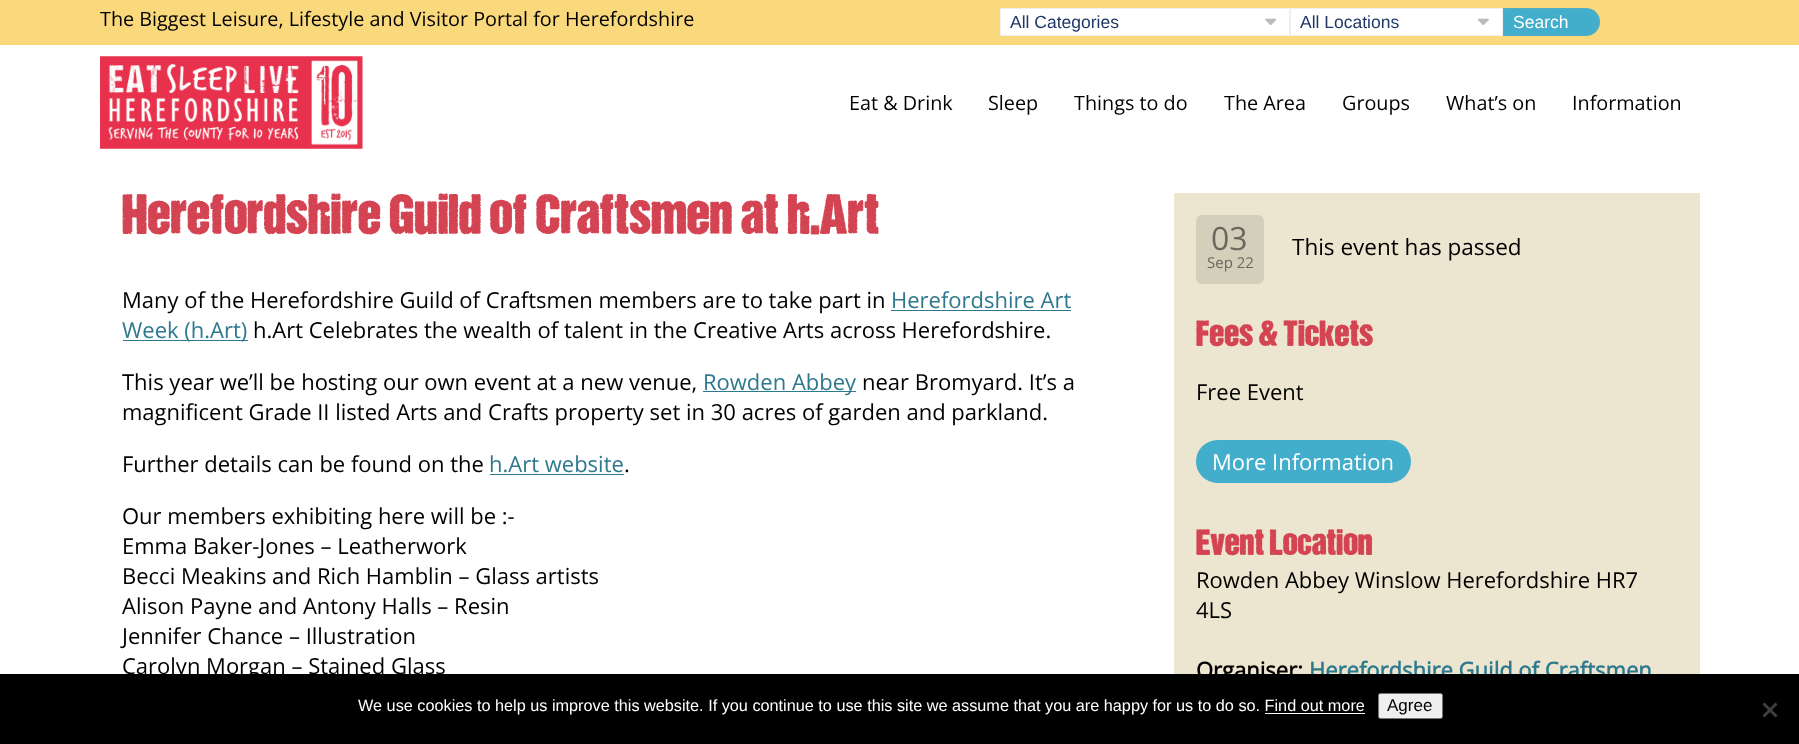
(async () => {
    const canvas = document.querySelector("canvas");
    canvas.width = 1799;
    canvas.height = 744;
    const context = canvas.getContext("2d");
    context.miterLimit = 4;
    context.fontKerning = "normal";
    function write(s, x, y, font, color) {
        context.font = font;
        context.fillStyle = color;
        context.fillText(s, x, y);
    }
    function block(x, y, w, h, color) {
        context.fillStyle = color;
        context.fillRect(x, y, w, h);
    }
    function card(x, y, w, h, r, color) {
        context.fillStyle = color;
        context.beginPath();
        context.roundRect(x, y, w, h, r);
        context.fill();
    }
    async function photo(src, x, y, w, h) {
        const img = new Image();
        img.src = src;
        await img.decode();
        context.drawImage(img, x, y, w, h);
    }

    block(0, 0, 1799, 744, "rgb(255, 255, 255)");
    block(0, 0, 1799, 45, "rgb(250, 217, 124)");
    write("The Biggest Leisure, Lifestyle and Visitor Portal for Herefordshire", 100, 26, "19.8px Open Sans", "rgb(0, 0, 0)");
    block(1001, 9, 288, 26, "rgb(255, 255, 255)");
    await photo("media/1.png", 1265, 18, 11, 8);
    context.strokeStyle = "rgb(239, 239, 239)";
    context.strokeRect(1000.5, 8.5, 289, 27);
    write("All Categories", 1010, 28, "17.5px Liberation Sans", "rgb(31, 56, 103)");
    block(1291, 9, 211, 26, "rgb(255, 255, 255)");
    await photo("media/2.png", 1478, 18, 11, 8);
    context.strokeRect(1290.5, 8.5, 212, 27);
    write("All Locations", 1300, 28, "17.5px Liberation Sans", "rgb(31, 56, 103)");
    context.fillStyle = "rgb(66, 174, 203)";
    context.beginPath();
    context.roundRect(1503, 8, 97, 28, [0, 14, 14, 0]);
    context.fill();
    context.beginPath();
    context.roundRect(1503.5, 8.5, 96, 27, [0, 13.5, 13.5, 0]);
    context.strokeStyle = "rgba(170, 170, 170, 0.19)";
    context.stroke();
    write("Search", 1513, 28, "17.5px Liberation Sans", "rgb(255, 255, 255)");
    await photo("media/3.png", 100, 56, 263, 93);
    write("Eat & Drink", 849, 110, "19.8px Open Sans", "rgb(0, 0, 0)");
    write("Sleep", 988, 110, "19.8px Open Sans", "rgb(0, 0, 0)");
    write("Things to do", 1074, 110, "19.8px Open Sans", "rgb(0, 0, 0)");
    write("The Area", 1224, 110, "19.8px Open Sans", "rgb(0, 0, 0)");
    write("Groups", 1342, 110, "19.8px Open Sans", "rgb(0, 0, 0)");
    write("What’s on", 1446, 110, "19.8px Open Sans", "rgb(0, 0, 0)");
    write("Information", 1572, 110, "19.8px Open Sans", "rgb(0, 0, 0)");
    context.letterSpacing = "1.1px";
    write("Herefordshire Guild of Craftsmen at h.Art", 122, 234, "bold 55px 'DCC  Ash'", "rgb(212, 67, 82)");
    context.letterSpacing = "0px";
    write("Many of the Herefordshire Guild of Craftsmen members are to take part in", 122, 308, "22px Open Sans", "rgb(0, 0, 0)");
    write("Herefordshire Art", 891, 308, "22px Open Sans", "rgb(46, 121, 142)");
    block(891, 310, 180, 1, "rgb(46, 121, 142)");
    block(123, 340, 125, 1, "rgb(46, 121, 142)");
    write("Week (h.Art)", 122, 338, "22px Open Sans", "rgb(46, 121, 142)");
    write("h.Art Celebrates the wealth of talent in the Creative Arts across Herefordshire.", 253, 338, "22px Open Sans", "rgb(0, 0, 0)");
    write("This year we’ll be hosting our own event at a new venue,", 122, 390, "22px Open Sans", "rgb(0, 0, 0)");
    block(703, 391, 153, 1, "rgb(46, 121, 142)");
    write("Rowden Abbey", 703, 390, "22px Open Sans", "rgb(46, 121, 142)");
    write("near Bromyard. It’s a", 862, 390, "22px Open Sans", "rgb(0, 0, 0)");
    write("magnificent Grade II listed Arts and Crafts property set in 30 acres of garden and parkland.", 122, 420, "22px Open Sans", "rgb(0, 0, 0)");
    write("Further details can be found on the", 122, 472, "22px Open Sans", "rgb(0, 0, 0)");
    write("h.Art website", 489, 472, "22px Open Sans", "rgb(46, 121, 142)");
    block(490, 474, 134, 1, "rgb(46, 121, 142)");
    write(".", 624, 472, "22px Open Sans", "rgb(0, 0, 0)");
    write("Our members exhibiting here will be :-", 122, 524, "22px Open Sans", "rgb(0, 0, 0)");
    write("Emma Baker-Jones – Leatherwork", 122, 554, "22px Open Sans", "rgb(0, 0, 0)");
    write("Becci Meakins and Rich Hamblin – Glass artists", 122, 584, "22px Open Sans", "rgb(0, 0, 0)");
    write("Alison Payne and Antony Halls – Resin", 122, 614, "22px Open Sans", "rgb(0, 0, 0)");
    write("Jennifer Chance – Illustration", 122, 644, "22px Open Sans", "rgb(0, 0, 0)");
    write("Carolyn Morgan – Stained Glass", 122, 674, "22px Open Sans", "rgb(0, 0, 0)");
    block(1174, 193, 526, 481, "rgb(236, 230, 208)");
    card(1196, 215, 68, 69, 6, "rgb(212, 207, 187)");
    write("03", 1211, 250, "32px Open Sans", "rgb(106, 104, 94)");
    write("Sep 22", 1207, 268, "15px Open Sans", "rgb(106, 104, 94)");
    write("This event has passed", 1292, 255, "22.5px Open Sans", "rgb(0, 0, 0)");
    context.letterSpacing = "0.75px";
    write("Fees & Tickets", 1196, 346, "bold 35.25px 'DCC  Ash'", "rgb(212, 67, 82)");
    context.letterSpacing = "0px";
    write("Free Event", 1196, 400, "22px Open Sans", "rgb(0, 0, 0)");
    card(1196, 440, 215, 43, 21.5, "rgb(66, 174, 203)");
    write("More Information", 1212, 470, "22px Open Sans", "rgb(255, 255, 255)");
    context.letterSpacing = "0.75px";
    write("Event Location", 1196, 555, "bold 35.25px 'DCC  Ash'", "rgb(212, 67, 82)");
    context.letterSpacing = "0px";
    write("Rowden Abbey Winslow Herefordshire HR7", 1196, 588, "22px Open Sans", "rgb(0, 0, 0)");
    write("4LS", 1196, 618, "22px Open Sans", "rgb(0, 0, 0)");
    write("Organiser:", 1196, 678, "bold 22px Open Sans", "rgb(0, 0, 0)");
    write("Herefordshire Guild of Craftsmen", 1309, 678, "bold 22px Open Sans", "rgb(46, 121, 142)");
    block(0, 674, 1799, 70, "rgb(0, 0, 0)");
    write("We use cookies to help us improve this website. If you continue to use this site we assume that you are happy for us to do so. Find out more", 358, 711, "16.25px Liberation Sans", "rgb(255, 255, 255)");
    block(1265, 713, 100, 1, "rgb(255, 255, 255)");
    context.fillStyle = "rgb(239, 239, 239)";
    context.beginPath();
    context.roundRect(1378.5, 693.5, 64, 25, 2);
    context.fill();
    context.strokeStyle = "rgb(118, 118, 118)";
    context.stroke();
    write("Agree", 1387, 711, "17px Liberation Sans", "rgb(0, 0, 0)");
    context.fillStyle = "rgb(64, 64, 64)";
    context.beginPath();
    context.moveTo(1775.5, 702.5);
    context.lineTo(1777.5, 704.5);
    context.lineTo(1764.5, 717.5);
    context.lineTo(1762.5, 715.5);
    context.closePath();
    context.fill();
    context.beginPath();
    context.moveTo(1762.5, 704.5);
    context.lineTo(1764.5, 702.5);
    context.lineTo(1777.5, 715.5);
    context.lineTo(1775.5, 717.5);
    context.closePath();
    context.fill();
})();
